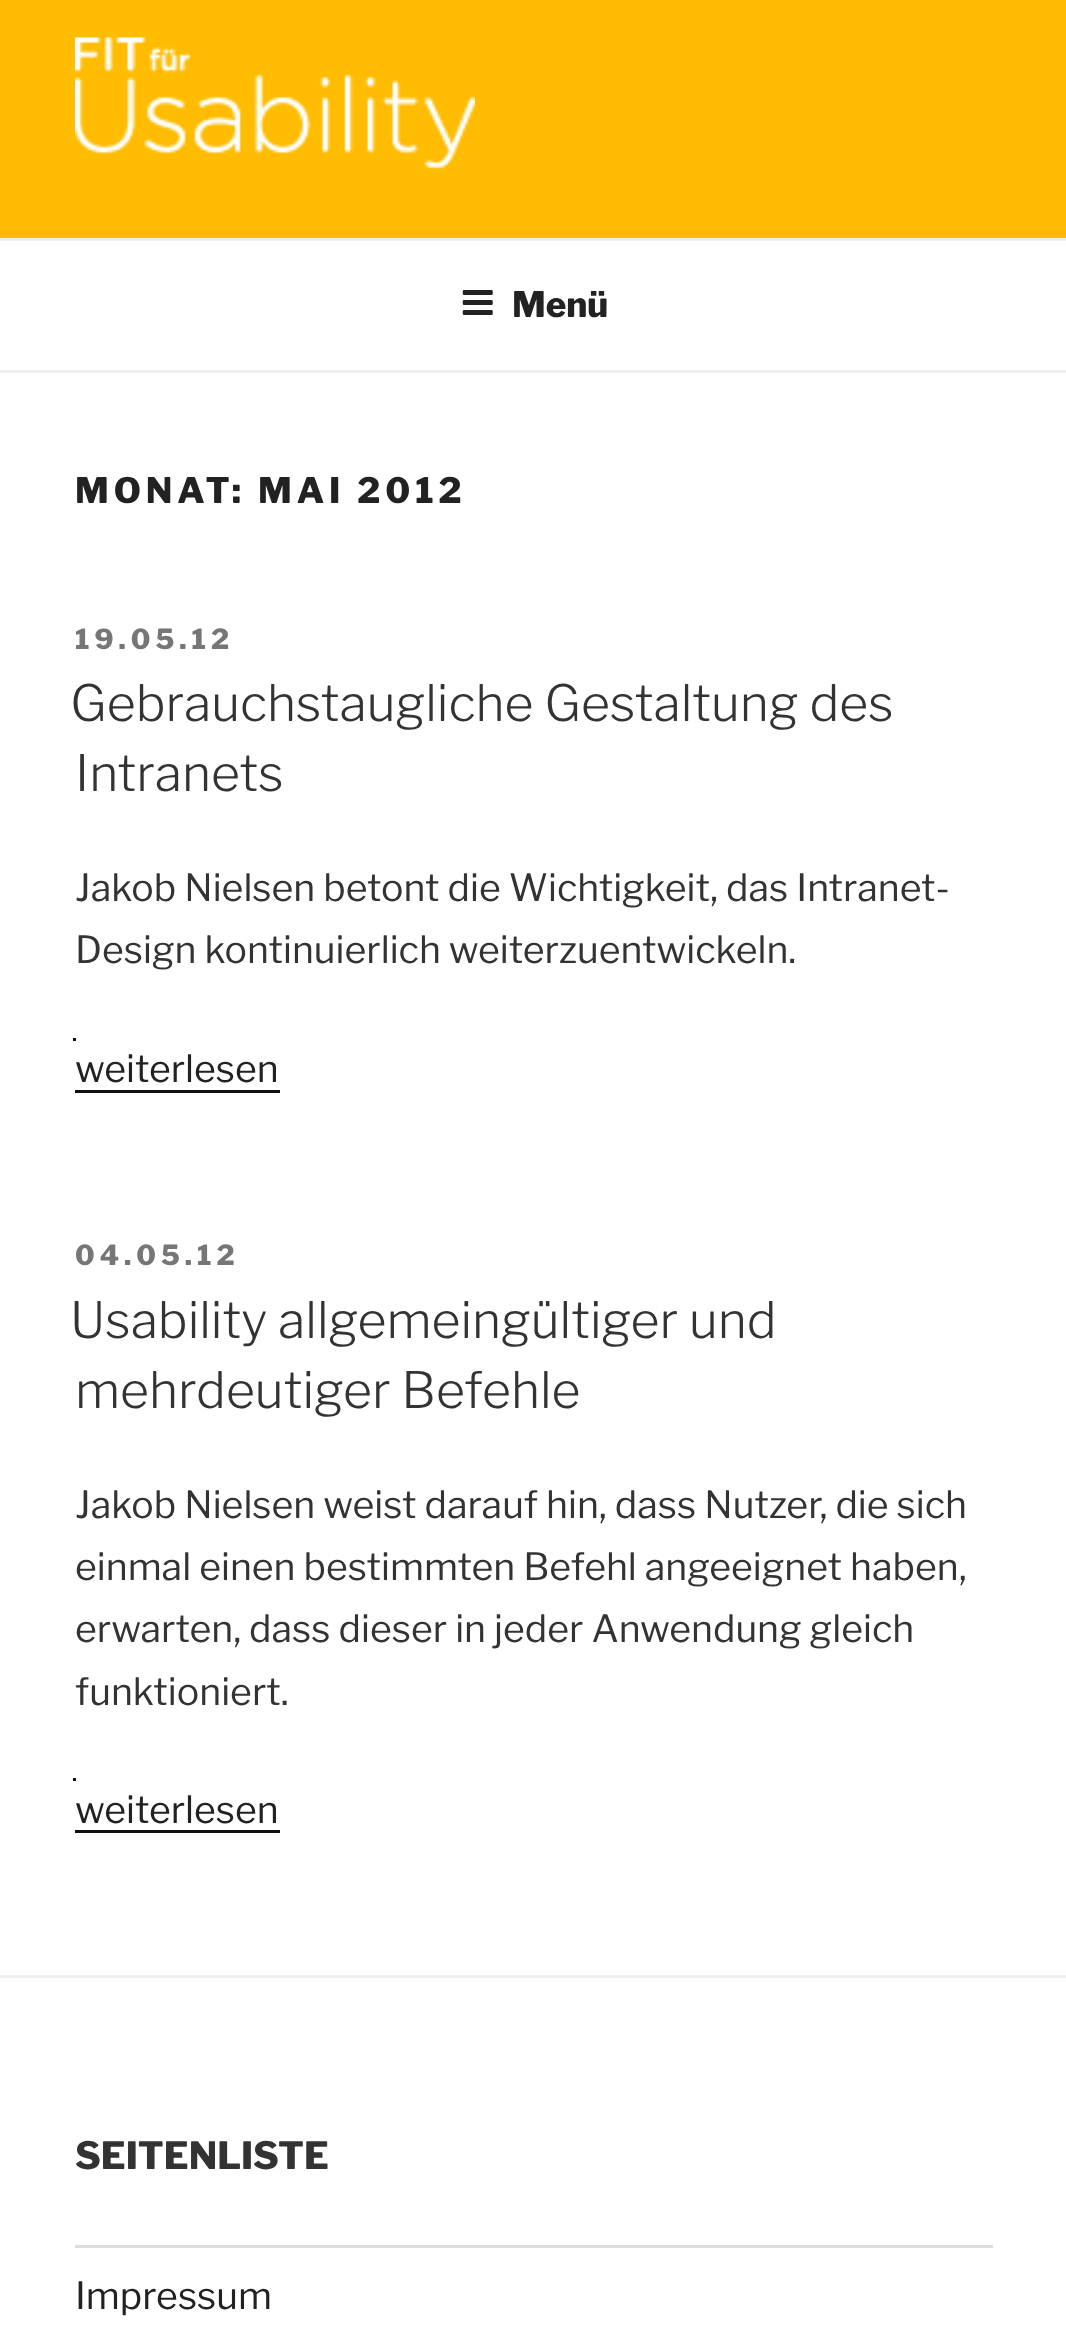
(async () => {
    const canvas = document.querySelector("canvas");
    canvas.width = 1066;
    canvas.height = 2345;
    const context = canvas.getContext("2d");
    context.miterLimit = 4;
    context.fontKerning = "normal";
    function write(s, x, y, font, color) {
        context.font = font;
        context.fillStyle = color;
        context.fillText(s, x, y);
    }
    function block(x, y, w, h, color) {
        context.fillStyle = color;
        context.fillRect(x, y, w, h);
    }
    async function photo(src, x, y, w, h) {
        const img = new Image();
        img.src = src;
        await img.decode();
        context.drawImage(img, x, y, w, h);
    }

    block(0, 0, 1066, 2345, "rgb(255, 255, 255)");
    block(0, 0, 1066, 238, "rgb(255, 188, 0)");
    await photo("media/1.png", 75, 37, 400, 132);
    block(0, 238, 1066, 3, "rgb(238, 238, 238)");
    block(0, 370, 1066, 3, "rgb(238, 238, 238)");
    await photo("media/2.png", 462, 290, 31, 25);
    write("Menü", 512, 317, "100 35px Libre Franklin", "rgb(34, 34, 34)");
    context.letterSpacing = "4.9px";
    write("MONAT: MAI 2012", 75, 503, "100 35px Libre Franklin", "rgb(34, 34, 34)");
    context.letterSpacing = "5px";
    write("19.05.12", 75, 649, "100 27.5px Libre Franklin", "rgb(118, 118, 118)");
    context.letterSpacing = "0px";
    write("Gebrauchstaugliche Gestaltung des", 70, 721, "100 50px 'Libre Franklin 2'", "rgb(51, 51, 51)");
    write("Intranets", 75, 791, "100 50px 'Libre Franklin 2'", "rgb(51, 51, 51)");
    write("Jakob Nielsen betont die Wichtigkeit, das Intranet-", 75, 901, "100 37.5px 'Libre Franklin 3'", "rgb(51, 51, 51)");
    write("Design kontinuierlich weiterzuentwickeln.", 75, 963, "100 37.5px 'Libre Franklin 3'", "rgb(51, 51, 51)");
    write("weiterlesen", 75, 1082, "100 37.5px 'Libre Franklin 3'", "rgb(34, 34, 34)");
    block(73, 1038, 3, 3, "rgb(15, 15, 15)");
    block(75, 1090, 205, 3, "rgb(15, 15, 15)");
    context.letterSpacing = "5px";
    write("04.05.12", 75, 1265, "100 27.5px Libre Franklin", "rgb(118, 118, 118)");
    context.letterSpacing = "0px";
    write("Usability allgemeingültiger und", 70, 1338, "100 50px 'Libre Franklin 2'", "rgb(51, 51, 51)");
    write("mehrdeutiger Befehle", 75, 1408, "100 50px 'Libre Franklin 2'", "rgb(51, 51, 51)");
    write("Jakob Nielsen weist darauf hin, dass Nutzer, die sich", 75, 1518, "100 37.5px 'Libre Franklin 3'", "rgb(51, 51, 51)");
    write("einmal einen bestimmten Befehl angeeignet haben,", 75, 1580, "100 37.5px 'Libre Franklin 3'", "rgb(51, 51, 51)");
    write("erwarten, dass dieser in jeder Anwendung gleich", 75, 1642, "100 37.5px 'Libre Franklin 3'", "rgb(51, 51, 51)");
    write("funktioniert.", 75, 1705, "100 37.5px 'Libre Franklin 3'", "rgb(51, 51, 51)");
    write("weiterlesen", 75, 1823, "100 37.5px 'Libre Franklin 3'", "rgb(34, 34, 34)");
    block(73, 1778, 3, 3, "rgb(15, 15, 15)");
    block(75, 1830, 205, 3, "rgb(15, 15, 15)");
    block(0, 1975, 1066, 3, "rgb(238, 238, 238)");
    write("SEITENLISTE", 75, 2169, "100 37.5px Libre Franklin", "rgb(51, 51, 51)");
    block(75, 2245, 918, 3, "rgb(221, 221, 221)");
    write("Impressum", 75, 2309, "100 37.5px 'Libre Franklin 3'", "rgb(34, 34, 34)");
})();
